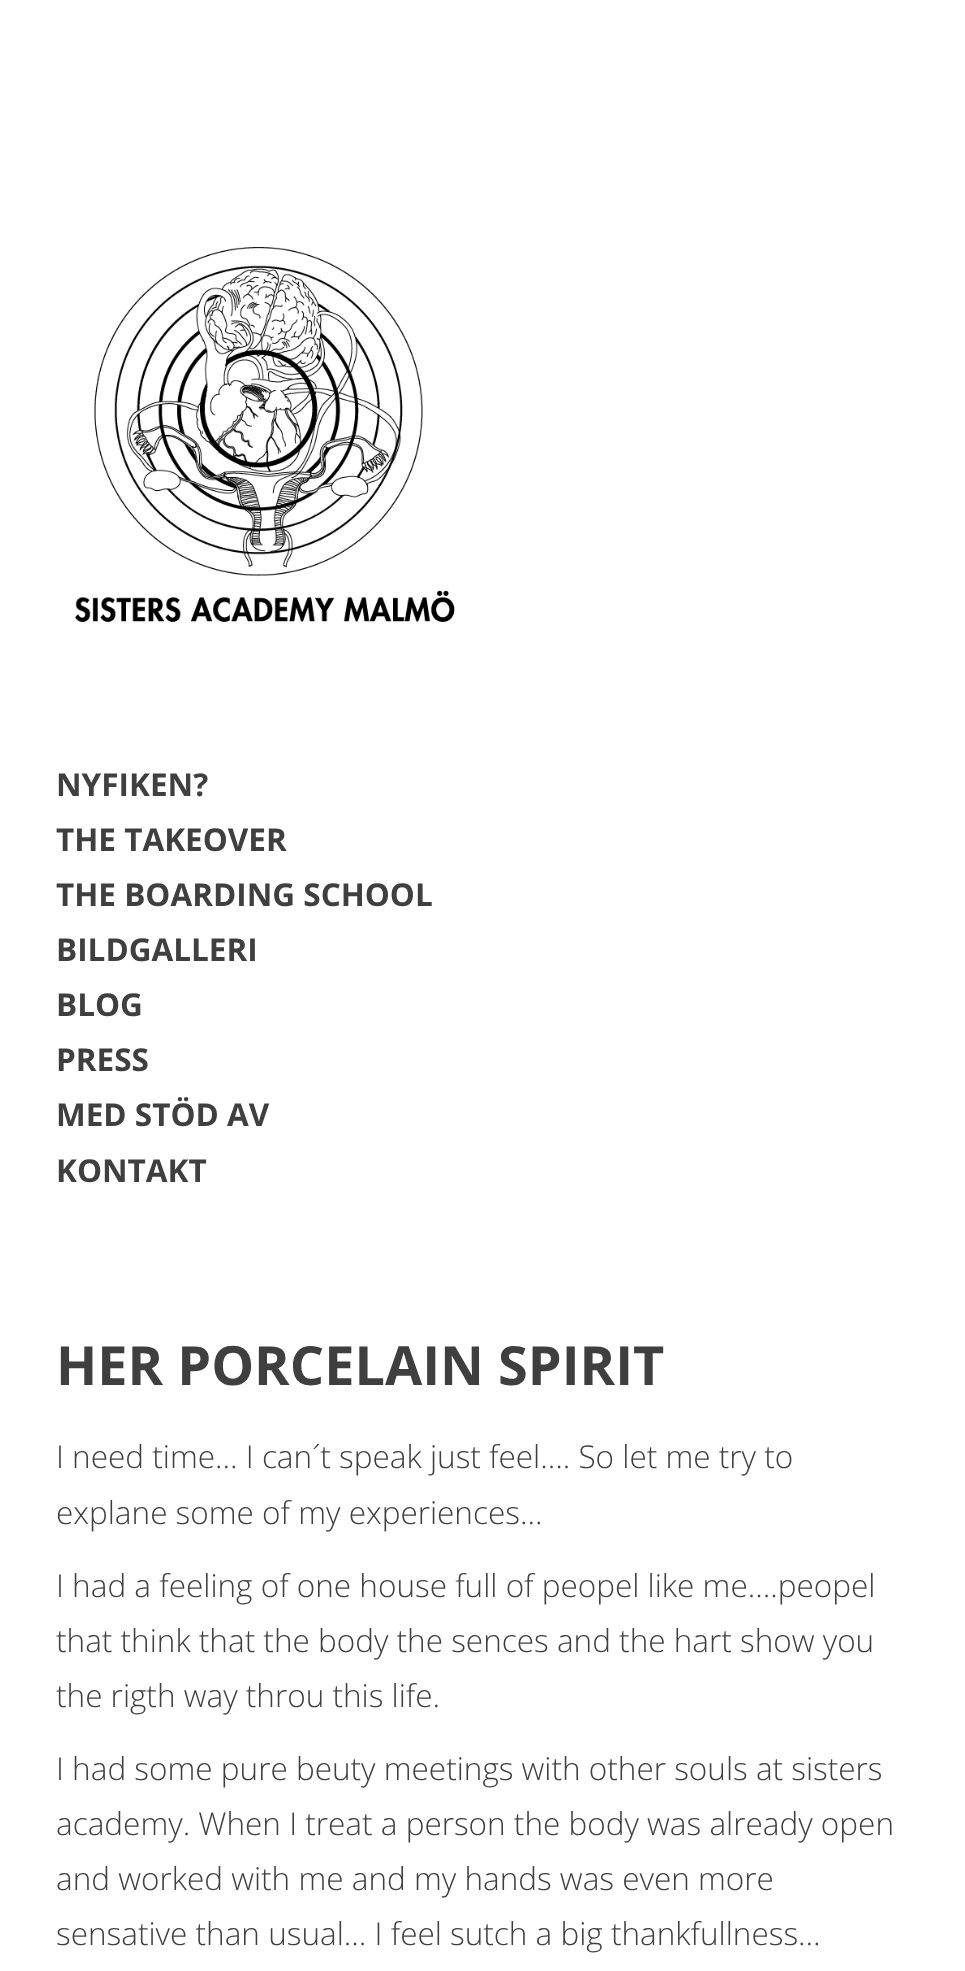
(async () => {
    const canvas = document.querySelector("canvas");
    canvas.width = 965;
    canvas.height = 1971;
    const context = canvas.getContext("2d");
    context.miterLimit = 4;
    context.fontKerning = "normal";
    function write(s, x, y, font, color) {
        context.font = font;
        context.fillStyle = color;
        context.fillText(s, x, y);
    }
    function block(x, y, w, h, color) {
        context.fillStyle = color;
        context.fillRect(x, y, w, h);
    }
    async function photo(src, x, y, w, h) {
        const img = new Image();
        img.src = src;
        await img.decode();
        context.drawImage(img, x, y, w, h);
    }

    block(0, 0, 965, 1971, "rgb(255, 255, 255)");
    await photo("media/1.png", 75, 247, 380, 375);
    write("NYFIKEN?", 56, 796, "bold 31.5px Open Sans", "rgb(63, 63, 63)");
    write("THE TAKEOVER", 56, 851, "bold 31.5px Open Sans", "rgb(63, 63, 63)");
    write("THE BOARDING SCHOOL", 56, 906, "bold 31.5px Open Sans", "rgb(63, 63, 63)");
    write("BILDGALLERI", 56, 961, "bold 31.5px Open Sans", "rgb(63, 63, 63)");
    write("BLOG", 56, 1016, "bold 31.5px Open Sans", "rgb(63, 63, 63)");
    write("PRESS", 56, 1071, "bold 31.5px Open Sans", "rgb(63, 63, 63)");
    write("MED STÖD AV", 56, 1126, "bold 31.5px Open Sans", "rgb(63, 63, 63)");
    write("KONTAKT", 56, 1182, "bold 31.5px Open Sans", "rgb(63, 63, 63)");
    write("HER PORCELAIN SPIRIT", 56, 1385, "bold 54px Open Sans", "rgb(63, 63, 63)");
    write("I need time… I can´t speak just feel…. So let me try to", 56, 1468, "300 31.5px Open Sans", "rgb(63, 63, 63)");
    write("explane some of my experiences…", 56, 1524, "300 31.5px Open Sans", "rgb(63, 63, 63)");
    write("I had a feeling of one house full of peopel like me….peopel", 56, 1597, "300 31.5px Open Sans", "rgb(63, 63, 63)");
    write("that think that the body the sences and the hart show you", 56, 1652, "300 31.5px Open Sans", "rgb(63, 63, 63)");
    write("the rigth way throu this life.", 56, 1707, "300 31.5px Open Sans", "rgb(63, 63, 63)");
    write("I had some pure beuty meetings with other souls at sisters", 56, 1780, "300 31.5px Open Sans", "rgb(63, 63, 63)");
    write("academy. When I treat a person the body was already open", 56, 1835, "300 31.5px Open Sans", "rgb(63, 63, 63)");
    write("and worked with me and my hands was even more", 56, 1890, "300 31.5px Open Sans", "rgb(63, 63, 63)");
    write("sensative than usual… I feel sutch a big thankfullness…", 56, 1945, "300 31.5px Open Sans", "rgb(63, 63, 63)");
})();
